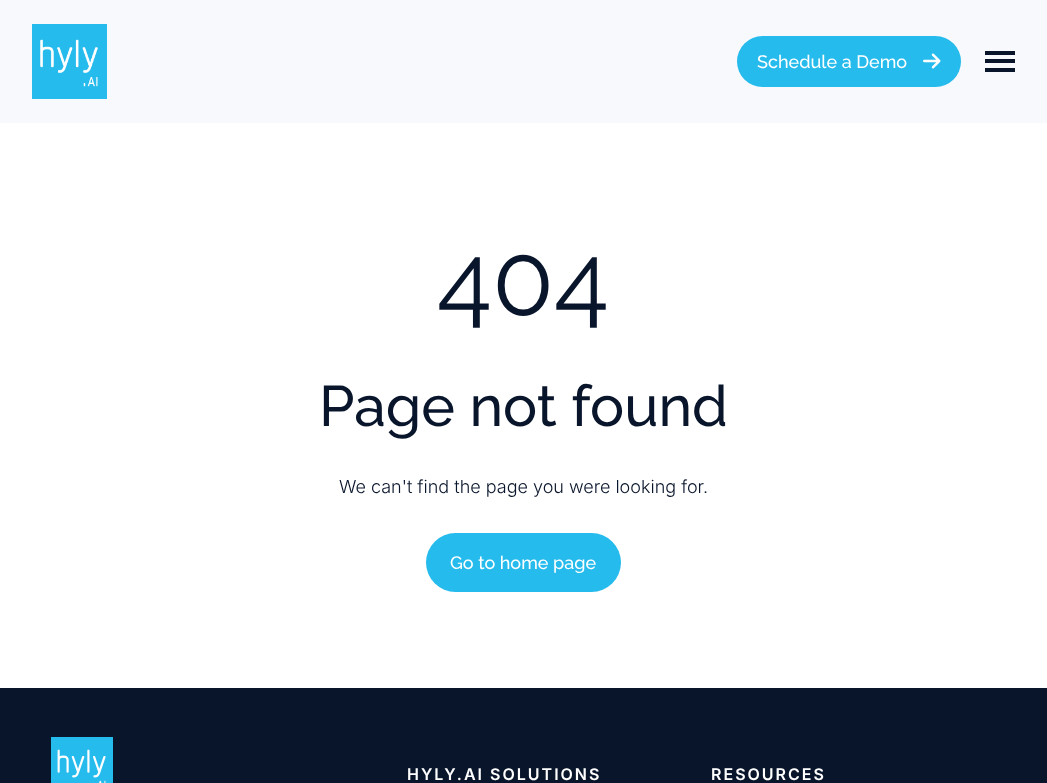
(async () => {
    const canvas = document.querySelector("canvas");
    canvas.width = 1047;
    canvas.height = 783;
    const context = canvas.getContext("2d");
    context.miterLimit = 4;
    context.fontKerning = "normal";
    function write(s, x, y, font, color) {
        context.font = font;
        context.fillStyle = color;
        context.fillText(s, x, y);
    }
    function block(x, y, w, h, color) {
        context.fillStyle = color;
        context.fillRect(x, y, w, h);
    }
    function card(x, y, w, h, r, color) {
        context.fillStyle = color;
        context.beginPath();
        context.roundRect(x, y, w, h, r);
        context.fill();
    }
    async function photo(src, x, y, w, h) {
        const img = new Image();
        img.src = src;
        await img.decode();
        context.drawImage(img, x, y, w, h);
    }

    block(0, 0, 1047, 783, "rgb(255, 255, 255)");
    block(0, 0, 1047, 123, "rgb(247, 249, 252)");
    await photo("media/1.png", 32, 24, 75, 75);
    card(737, 36, 224, 51, 25.5, "rgb(38, 187, 237)");
    write("Schedule a Demo", 757, 68, "500 18px Raleway", "rgb(255, 255, 255)");
    await photo("media/2.png", 923, 53, 18, 16);
    block(985, 51, 30, 4, "rgb(9, 21, 43)");
    block(985, 59, 30, 4, "rgb(9, 21, 43)");
    block(985, 68, 30, 4, "rgb(9, 21, 43)");
    write("404", 437, 315, "101px Raleway", "rgb(9, 21, 43)");
    write("Page not found", 319, 426, "500 57px Raleway", "rgb(9, 21, 43)");
    write("We can't find the page you were looking for.", 339, 493, "300 18px Inter", "rgb(9, 21, 43)");
    card(426, 533, 195, 59, 29.5, "rgb(38, 187, 237)");
    write("Go to home page", 450, 569, "500 18px Raleway", "rgb(255, 255, 255)");
    block(0, 688, 1047, 95, "rgb(9, 21, 43)");
    await photo("media/3.png", 51, 737, 62, 46);
    context.letterSpacing = "2px";
    write("HYLY.AI SOLUTIONS", 407, 780, "600 16px Inter", "rgb(255, 255, 255)");
    write("RESOURCES", 711, 780, "600 16px Inter", "rgb(255, 255, 255)");
})();
